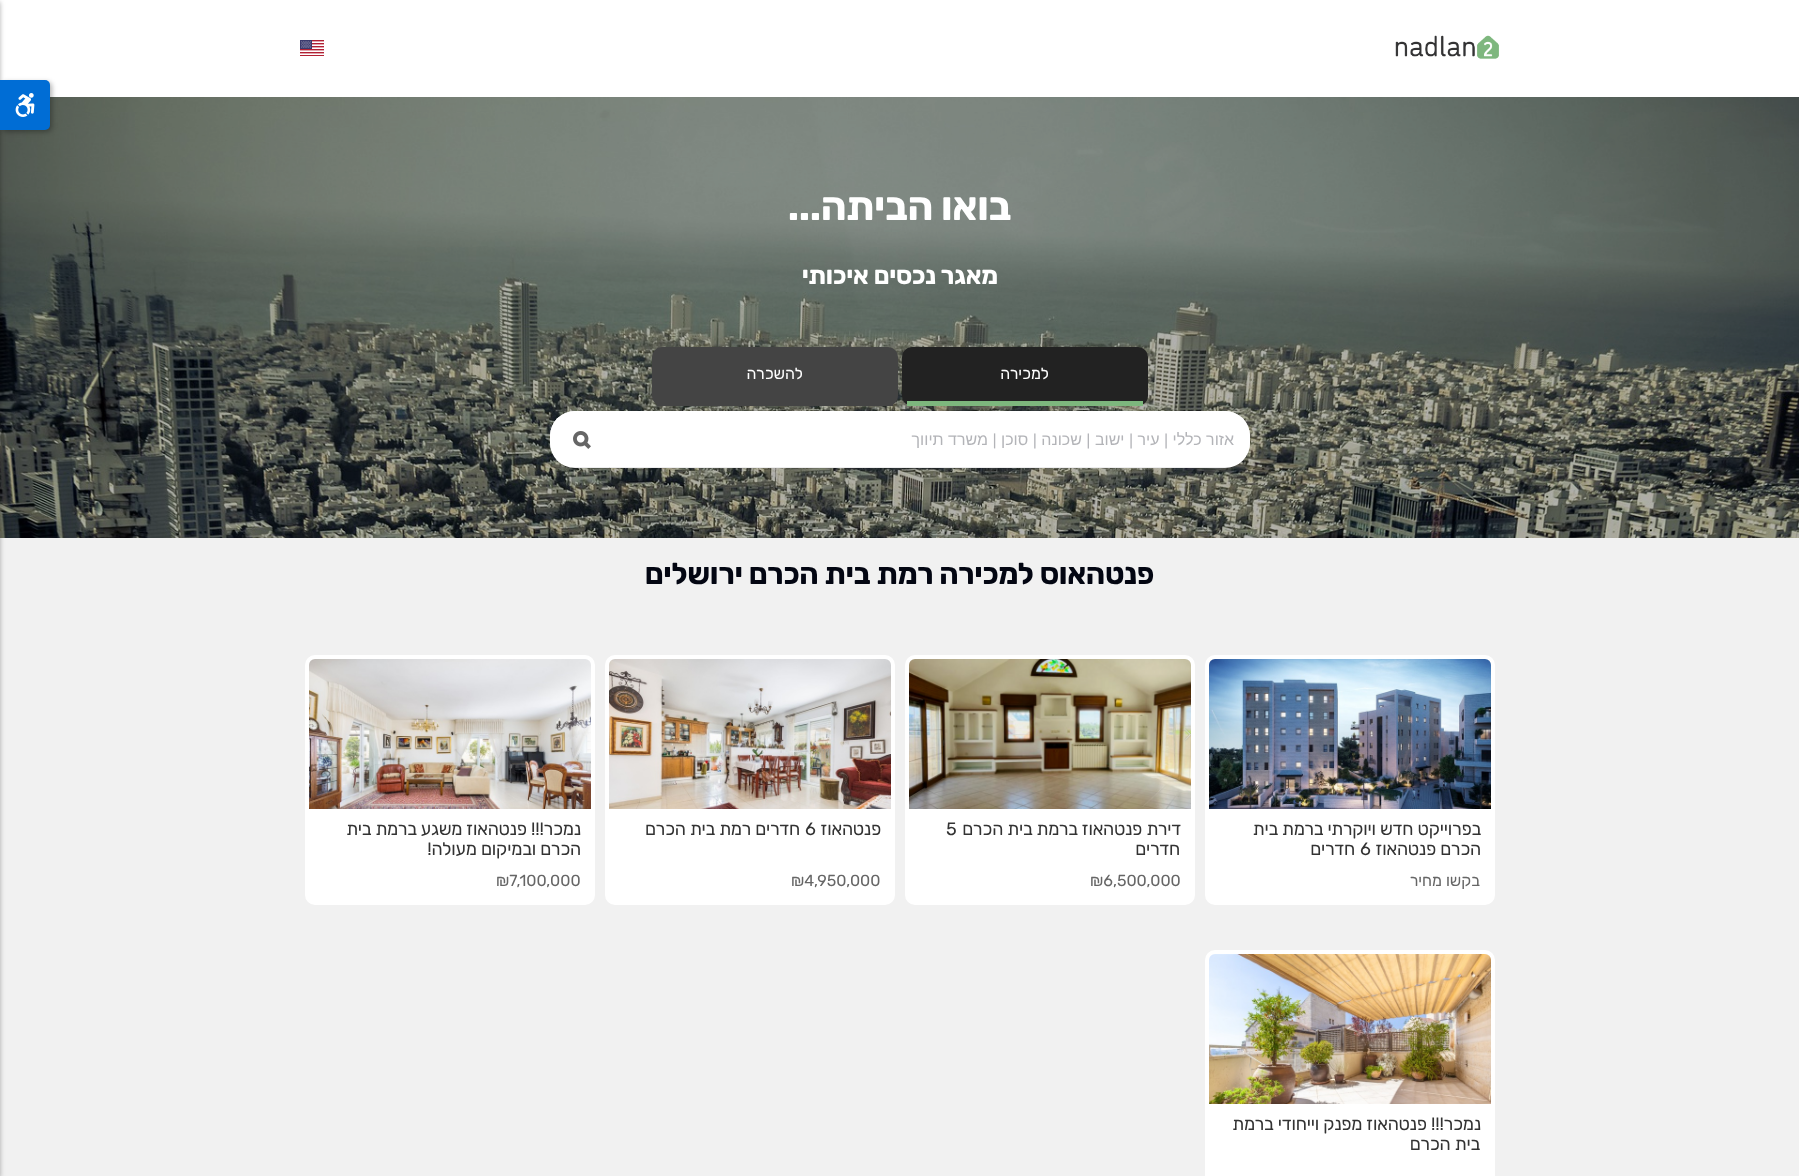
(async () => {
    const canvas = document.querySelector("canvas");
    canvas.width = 1799;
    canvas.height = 1176;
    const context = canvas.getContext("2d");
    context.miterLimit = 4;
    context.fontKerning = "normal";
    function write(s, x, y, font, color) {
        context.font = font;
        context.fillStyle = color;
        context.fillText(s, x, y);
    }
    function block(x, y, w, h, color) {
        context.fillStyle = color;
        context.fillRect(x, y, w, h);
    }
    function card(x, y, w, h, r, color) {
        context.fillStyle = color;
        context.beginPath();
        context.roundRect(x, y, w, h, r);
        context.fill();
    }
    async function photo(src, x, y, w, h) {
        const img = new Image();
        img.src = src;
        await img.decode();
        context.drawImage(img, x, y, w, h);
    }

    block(0, 0, 1799, 1176, "rgb(255, 255, 255)");
    await photo("media/1.png", 1395, 35, 104, 24);
    await photo("media/2.png", 300, 40, 24, 16);
    await photo("media/4.png", 0, 97, 1799, 441);
    block(0, 538, 1799, 638, "rgb(241, 241, 241)");
    context.fillStyle = "rgba(0, 0, 0, 0.3)";
    context.filter = "blur(2.5px)";
    context.beginPath();
    context.rect(-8, 2, 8, 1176);
    context.fill();
    context.filter = "none";
    context.filter = "blur(2.5px)";
    context.beginPath();
    context.roundRect(2, 82, 50, 50, 5);
    context.fill();
    context.filter = "none";
    context.fillStyle = "rgb(0, 109, 213)";
    context.beginPath();
    context.roundRect(0, 80, 50, 50, [0, 5, 5, 0]);
    context.fill();
    await photo("media/3.png", 15, 93, 20, 24);
    context.letterSpacing = "-0.4px";
    context.direction = "rtl";
    write("בואו הביתה...", 1011, 220, "bold 40px Rubik", "rgb(255, 255, 255)");
    context.letterSpacing = "-0.25px";
    write("מאגר נכסים איכותי", 998, 284, "bold 25px Rubik", "rgb(255, 255, 255)");
    block(650, 410, 250, 1, "rgba(3, 6, 18, 0.07)");
    block(899, 410, 251, 1, "rgba(3, 6, 18, 0.07)");
    card(902, 347, 246, 59, 10, "rgb(34, 34, 34)");
    block(907, 401, 236, 5, "rgb(125, 183, 125)");
    context.letterSpacing = "0px";
    write("למכירה", 1049, 379, "16px Rubik", "rgb(255, 255, 255)");
    card(652, 347, 246, 59, 10, "rgb(68, 68, 68)");
    block(657, 404, 236, 2, "rgb(68, 68, 68)");
    write("להשכרה", 803, 379, "16px Rubik", "rgb(255, 255, 255)");
    card(550, 411, 700, 57, 25, "rgb(255, 255, 255)");
    block(549, 467, 61, 1, "rgba(3, 6, 18, 0.07)");
    block(609, 467, 641, 1, "rgba(3, 6, 18, 0.07)");
    context.fillStyle = "rgb(255, 255, 255)";
    context.beginPath();
    context.roundRect(610, 411, 640, 56, [0, 25, 25, 0]);
    context.fill();
    write("אזור כללי | עיר | ישוב | שכונה | סוכן | משרד תיווך", 1234, 445, "16px Liberation Sans", "rgb(179, 180, 184)");
    context.fillStyle = "rgb(255, 255, 255)";
    context.beginPath();
    context.roundRect(550, 411, 60, 56, [25, 0, 0, 25]);
    context.fill();
    await photo("media/5.png", 573, 431, 18, 18);
    context.letterSpacing = "-0.3px";
    write("פנטהאוס למכירה רמת בית הכרם ירושלים", 1154, 584, "bold 30px Rubik", "rgb(3, 6, 18)");
    context.fillStyle = "rgb(255, 255, 255)";
    context.beginPath();
    context.roundRect(1207, 657, 286, 246, 8);
    context.fill();
    context.strokeStyle = "rgb(255, 255, 255)";
    context.lineWidth = 4;
    context.stroke();
    await photo("media/6.png", 1209, 659, 282, 150);
    context.letterSpacing = "-0.2px";
    write("בפרוייקט חדש ויוקרתי ברמת בית", 1481, 835, "18px Rubik", "rgb(51, 51, 51)");
    write("הכרם פנטהאוז", 1481, 855, "18px Rubik", "rgb(51, 51, 51)");
    context.direction = "ltr";
    write("6", 1360, 855, "18px Rubik", "rgb(51, 51, 51)");
    context.direction = "rtl";
    write("חדרים", 1355, 855, "18px Rubik", "rgb(51, 51, 51)");
    context.letterSpacing = "0px";
    write("בקשו מחיר", 1480, 886, "16px Rubik", "rgb(102, 102, 102)");
    context.fillStyle = "rgb(255, 255, 255)";
    context.beginPath();
    context.roundRect(907, 657, 286, 246, 8);
    context.fill();
    context.stroke();
    await photo("media/7.png", 909, 659, 282, 150);
    context.letterSpacing = "-0.2px";
    write("דירת פנטהאוז ברמת בית הכרם", 1181, 835, "18px Rubik", "rgb(51, 51, 51)");
    context.direction = "ltr";
    write("5", 946, 835, "18px Rubik", "rgb(51, 51, 51)");
    context.direction = "rtl";
    write("חדרים", 1180, 855, "18px Rubik", "rgb(51, 51, 51)");
    context.letterSpacing = "0px";
    context.direction = "ltr";
    write("₪6,500,000", 1090, 886, "16px Rubik", "rgb(102, 102, 102)");
    context.fillStyle = "rgb(255, 255, 255)";
    context.beginPath();
    context.roundRect(607, 657, 286, 246, 8);
    context.fill();
    context.stroke();
    await photo("media/8.png", 609, 659, 282, 150);
    context.letterSpacing = "-0.2px";
    context.direction = "rtl";
    write("פנטהאוז", 881, 835, "18px Rubik", "rgb(51, 51, 51)");
    context.direction = "ltr";
    write("6", 805, 835, "18px Rubik", "rgb(51, 51, 51)");
    context.direction = "rtl";
    write("חדרים רמת בית הכרם", 800, 835, "18px Rubik", "rgb(51, 51, 51)");
    context.letterSpacing = "0px";
    context.direction = "ltr";
    write("₪4,950,000", 791, 886, "16px Rubik", "rgb(102, 102, 102)");
    context.fillStyle = "rgb(255, 255, 255)";
    context.beginPath();
    context.roundRect(307, 657, 286, 246, 8);
    context.fill();
    context.stroke();
    await photo("media/9.png", 309, 659, 282, 150);
    context.letterSpacing = "-0.2px";
    context.direction = "rtl";
    write("נמכר!!! פנטהאוז משגע ברמת בית", 581, 835, "18px Rubik", "rgb(51, 51, 51)");
    write("הכרם ובמיקום מעולה!", 581, 855, "18px Rubik", "rgb(51, 51, 51)");
    context.letterSpacing = "0px";
    context.direction = "ltr";
    write("₪7,100,000", 496, 886, "16px Rubik", "rgb(102, 102, 102)");
    context.fillStyle = "rgb(255, 255, 255)";
    context.beginPath();
    context.roundRect(1207, 952, 286, 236, 8);
    context.fill();
    context.stroke();
    await photo("media/10.png", 1209, 954, 282, 150);
    context.letterSpacing = "-0.2px";
    context.direction = "rtl";
    write("נמכר!!! פנטהאוז מפנק וייחודי ברמת", 1481, 1130, "18px Rubik", "rgb(51, 51, 51)");
    write("בית הכרם", 1480, 1150, "18px Rubik", "rgb(51, 51, 51)");
})();
